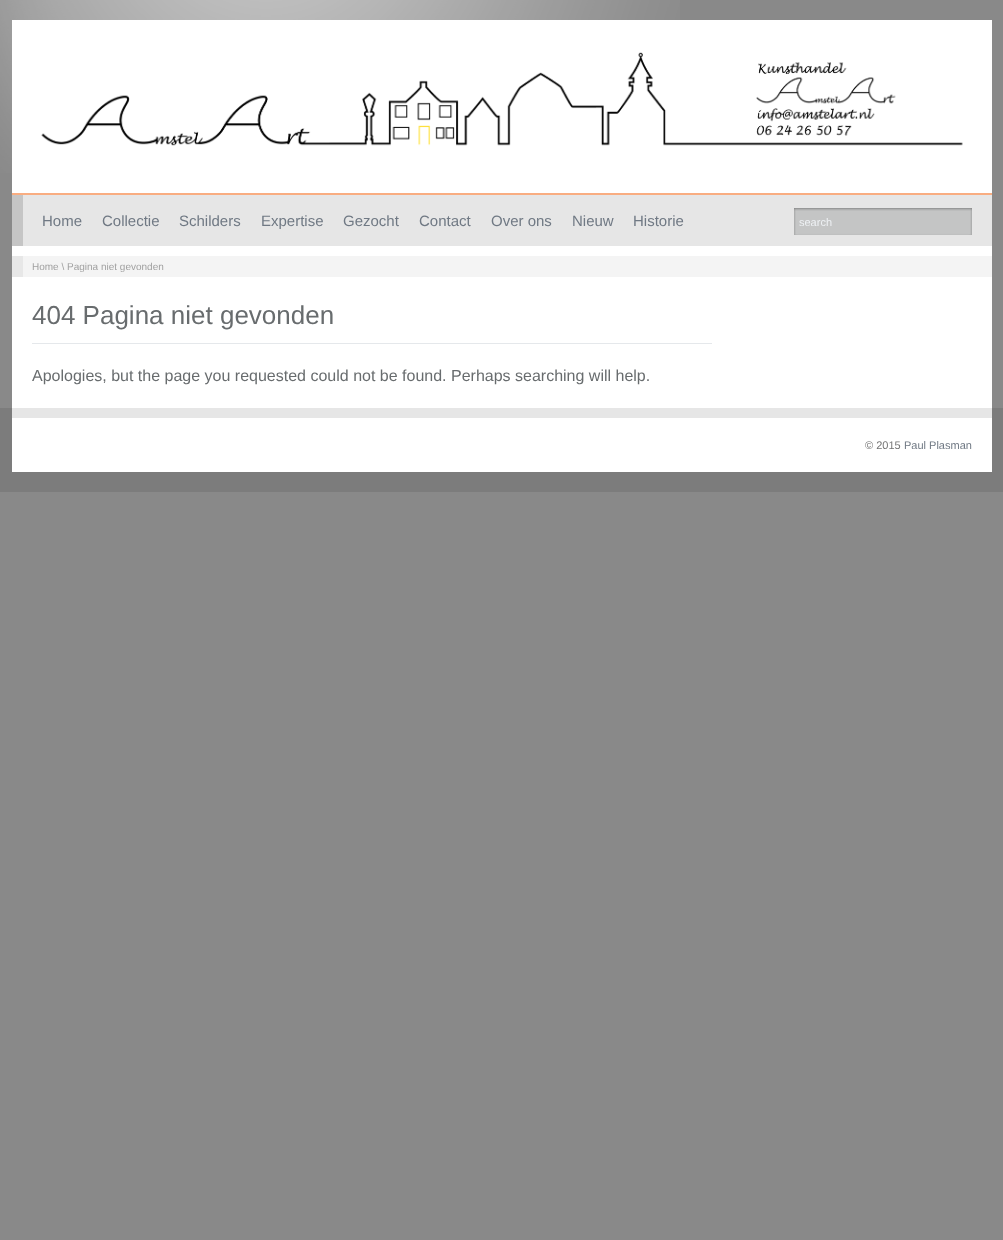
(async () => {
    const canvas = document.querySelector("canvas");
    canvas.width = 1003;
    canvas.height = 1240;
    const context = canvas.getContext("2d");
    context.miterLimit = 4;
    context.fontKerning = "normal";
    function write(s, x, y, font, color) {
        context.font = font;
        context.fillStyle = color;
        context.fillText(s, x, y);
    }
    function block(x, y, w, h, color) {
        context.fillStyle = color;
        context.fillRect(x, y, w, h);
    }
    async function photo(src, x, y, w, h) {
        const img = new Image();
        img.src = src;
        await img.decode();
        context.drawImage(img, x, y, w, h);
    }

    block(0, 0, 1003, 1240, "rgb(137, 137, 137)");
    await photo("media/1.png", 0, 0, 680, 173);
    block(12, 20, 980, 388, "rgb(255, 255, 255)");
    await photo("media/2.png", 41, 52, 922, 94);
    block(23, 195, 969, 51, "rgb(230, 230, 230)");
    block(12, 195, 11, 51, "rgb(197, 197, 197)");
    block(12, 193, 980, 2, "rgb(249, 173, 129)");
    write("Home", 42, 226, "15px Liberation Sans", "rgb(112, 121, 132)");
    write("Collectie", 102, 226, "15px Liberation Sans", "rgb(112, 121, 132)");
    write("Schilders", 179, 226, "15px Liberation Sans", "rgb(112, 121, 132)");
    write("Expertise", 261, 226, "15px Liberation Sans", "rgb(112, 121, 132)");
    write("Gezocht", 343, 226, "15px Liberation Sans", "rgb(112, 121, 132)");
    write("Contact", 419, 226, "15px Liberation Sans", "rgb(112, 121, 132)");
    write("Over ons", 491, 226, "15px Liberation Sans", "rgb(112, 121, 132)");
    write("Nieuw", 572, 226, "15px Liberation Sans", "rgb(112, 121, 132)");
    write("Historie", 633, 226, "15px Liberation Sans", "rgb(112, 121, 132)");
    await photo("media/3.png", 794, 208, 178, 27);
    write("search", 799, 226, "11px Liberation Sans", "rgb(238, 241, 244)");
    block(23, 256, 969, 21, "rgb(244, 244, 244)");
    block(12, 256, 11, 21, "rgb(231, 231, 231)");
    write("Home \\ Pagina niet gevonden", 32, 270, "10px Liberation Sans", "rgb(161, 161, 161)");
    write("404 Pagina niet gevonden", 32, 324, "26px Liberation Sans", "rgb(104, 108, 110)");
    block(32, 343, 680, 1, "rgb(229, 232, 235)");
    write("Apologies, but the page you requested could not be found. Perhaps searching will help.", 32, 381, "16px Liberation Sans", "rgb(104, 108, 110)");
    block(0, 408, 1003, 84, "rgb(124, 124, 124)");
    block(12, 408, 980, 10, "rgb(230, 230, 230)");
    block(12, 418, 980, 54, "rgb(255, 255, 255)");
    write("© 2015", 865, 449, "11px Liberation Sans", "rgb(116, 116, 116)");
    write("Paul Plasman", 904, 449, "11px Liberation Sans", "rgb(112, 121, 132)");
})();
